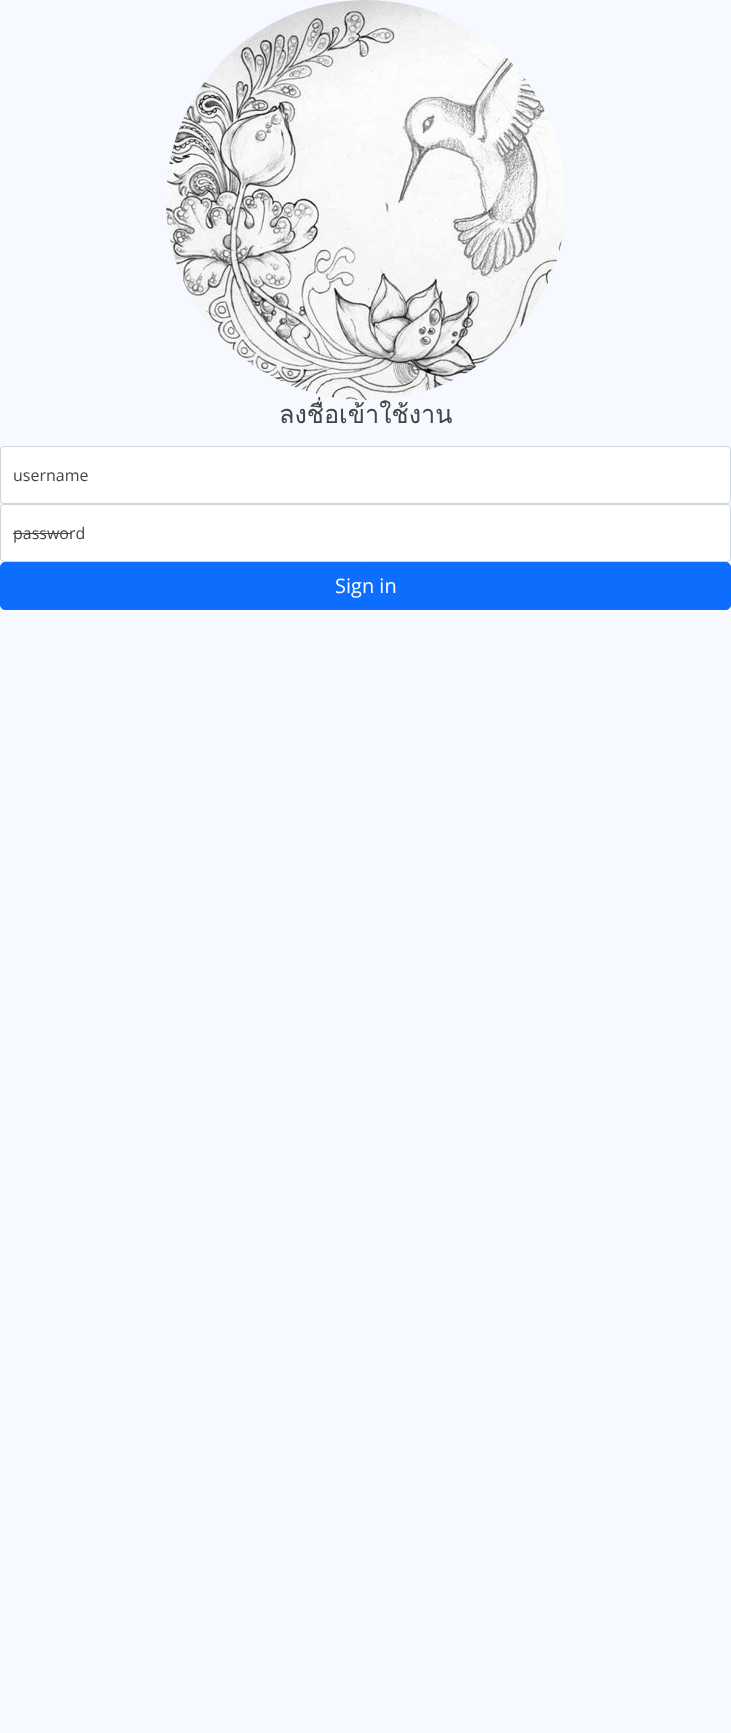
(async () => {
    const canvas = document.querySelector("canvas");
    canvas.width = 731;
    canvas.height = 1733;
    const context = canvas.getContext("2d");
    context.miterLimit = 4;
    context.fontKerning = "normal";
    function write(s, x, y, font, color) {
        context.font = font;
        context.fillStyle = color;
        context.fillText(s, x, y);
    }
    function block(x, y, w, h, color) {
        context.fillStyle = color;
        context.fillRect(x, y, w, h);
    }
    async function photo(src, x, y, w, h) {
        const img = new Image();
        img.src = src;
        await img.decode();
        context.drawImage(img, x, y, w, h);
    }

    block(0, 0, 731, 1733, "rgb(246, 249, 255)");
    await photo("media/1.png", 166, 0, 400, 400);
    write("ลงชื่อเข้าใช้งาน", 279, 423, "25.25px Loma", "rgb(68, 68, 68)");
    context.fillStyle = "rgb(255, 255, 255)";
    context.beginPath();
    context.roundRect(0.5, 446.5, 730, 57, 3.5);
    context.fill();
    context.strokeStyle = "rgb(206, 212, 218)";
    context.stroke();
    write("username", 13, 481, "16px Open Sans", "rgb(68, 68, 68)");
    context.fillStyle = "rgb(255, 255, 255)";
    context.beginPath();
    context.roundRect(0.5, 504.5, 730, 57, 3.5);
    context.fill();
    context.stroke();
    block(13, 533, 58, 1, "rgb(68, 68, 68)");
    write("password", 13, 539, "16px Open Sans", "rgb(68, 68, 68)");
    context.fillStyle = "rgb(13, 110, 253)";
    context.beginPath();
    context.roundRect(0.5, 562.5, 730, 47, 4.5);
    context.fill();
    context.strokeStyle = "rgb(13, 110, 253)";
    context.stroke();
    write("Sign in", 335, 593, "20px Open Sans", "rgb(255, 255, 255)");
})();
